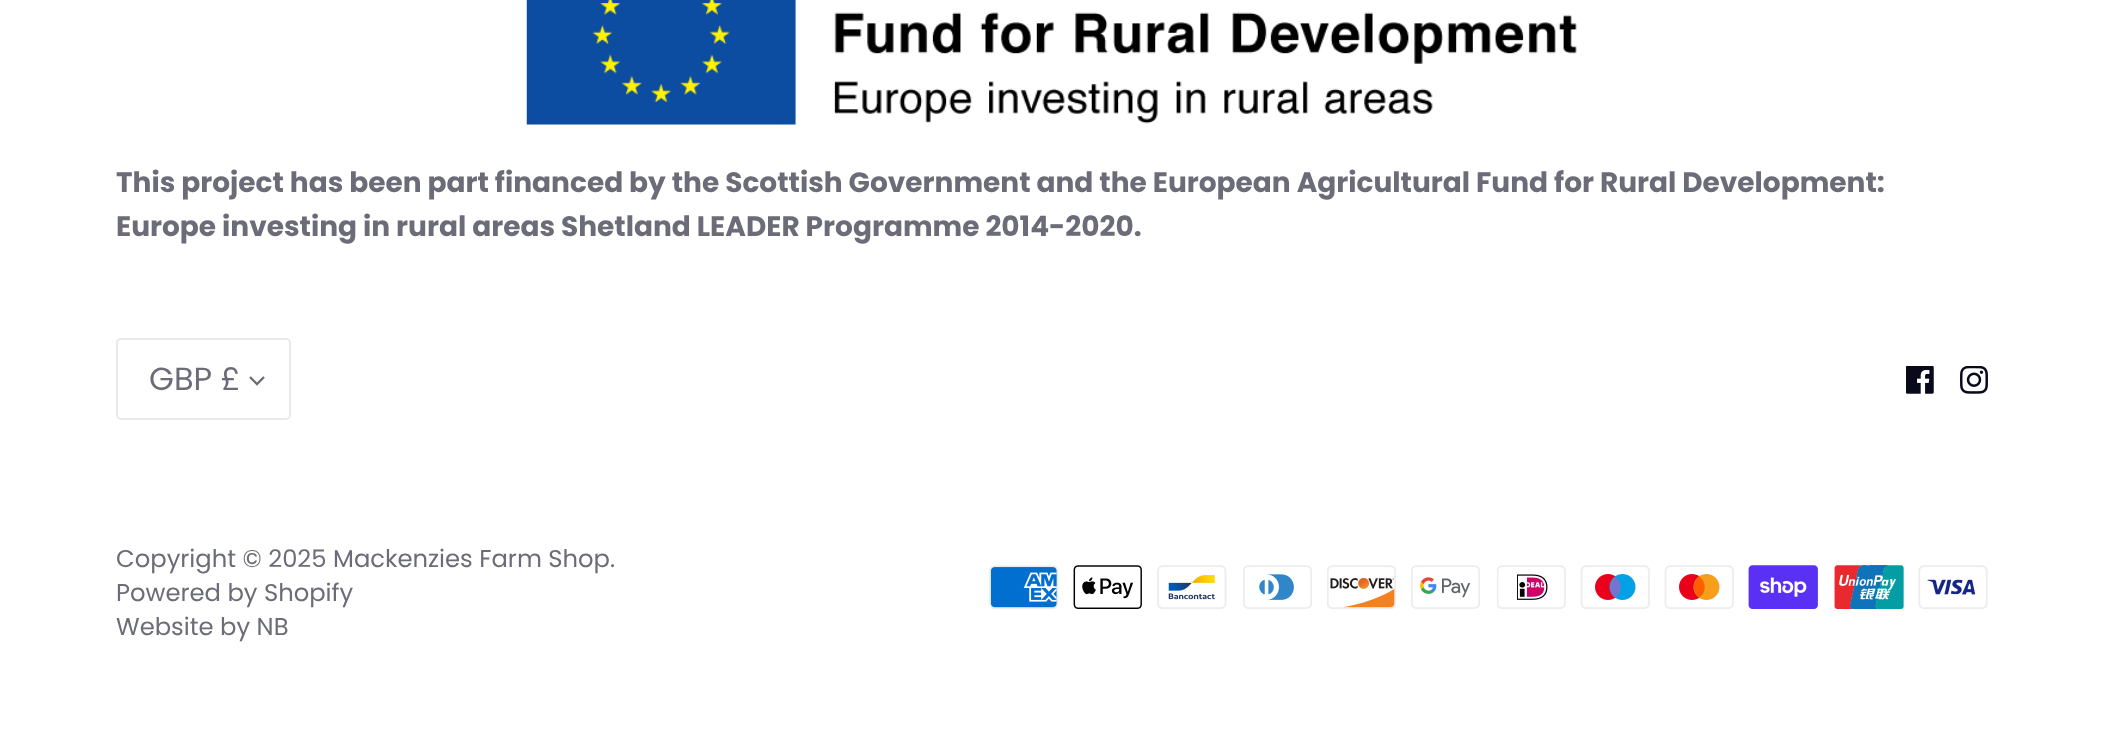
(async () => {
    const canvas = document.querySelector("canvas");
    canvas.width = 2103;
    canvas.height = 748;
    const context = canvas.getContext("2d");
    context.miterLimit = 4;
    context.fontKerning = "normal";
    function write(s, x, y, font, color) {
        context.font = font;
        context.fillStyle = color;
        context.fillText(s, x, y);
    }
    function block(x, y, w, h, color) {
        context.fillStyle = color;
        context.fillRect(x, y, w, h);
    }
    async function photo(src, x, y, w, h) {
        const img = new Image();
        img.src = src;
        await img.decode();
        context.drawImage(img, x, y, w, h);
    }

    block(0, 0, 2103, 748, "rgb(255, 255, 255)");
    await photo("media/1.png", 526, 0, 1051, 125);
    write("This project has been part financed by the Scottish Government and the European Agricultural Fund for Rural Development:", 116, 192, "bold 28px Poppins", "rgb(107, 108, 119)");
    write("Europe investing in rural areas Shetland LEADER Programme 2014-2020.", 116, 236, "bold 28px Poppins", "rgb(107, 108, 119)");
    context.beginPath();
    context.roundRect(117, 339, 173, 80, 4);
    context.strokeStyle = "rgb(233, 233, 235)";
    context.lineWidth = 2;
    context.stroke();
    write("GBP £", 149, 390, "32px Poppins", "rgb(107, 108, 119)");
    context.beginPath();
    context.moveTo(250, 377);
    context.lineTo(257, 384);
    context.lineTo(264, 377);
    context.strokeStyle = "rgb(107, 108, 119)";
    context.lineWidth = 2.3;
    context.stroke();
    await photo("media/2.png", 1906, 366, 28, 28);
    await photo("media/3.png", 1960, 366, 28, 28);
    write("Copyright © 2025 Mackenzies Farm Shop.", 116, 567, "24.25px Poppins", "rgb(107, 108, 119)");
    write("Powered by Shopify", 116, 601, "24.25px Poppins", "rgb(107, 108, 119)");
    write("Website by NB", 116, 635, "24.25px Poppins", "rgb(107, 108, 119)");
    await photo("media/4.png", 989, 565, 70, 44);
    await photo("media/5.png", 1073, 565, 69, 44);
    await photo("media/6.png", 1157, 565, 70, 44);
    await photo("media/7.png", 1243, 565, 69, 44);
    await photo("media/8.png", 1327, 565, 69, 44);
    await photo("media/9.png", 1411, 565, 69, 44);
    await photo("media/10.png", 1497, 565, 69, 44);
    await photo("media/11.png", 1580, 565, 70, 44);
    await photo("media/12.png", 1664, 565, 70, 44);
    await photo("media/13.png", 1748, 565, 70, 44);
    await photo("media/14.png", 1834, 565, 70, 44);
    await photo("media/15.png", 1918, 565, 70, 44);
})();
